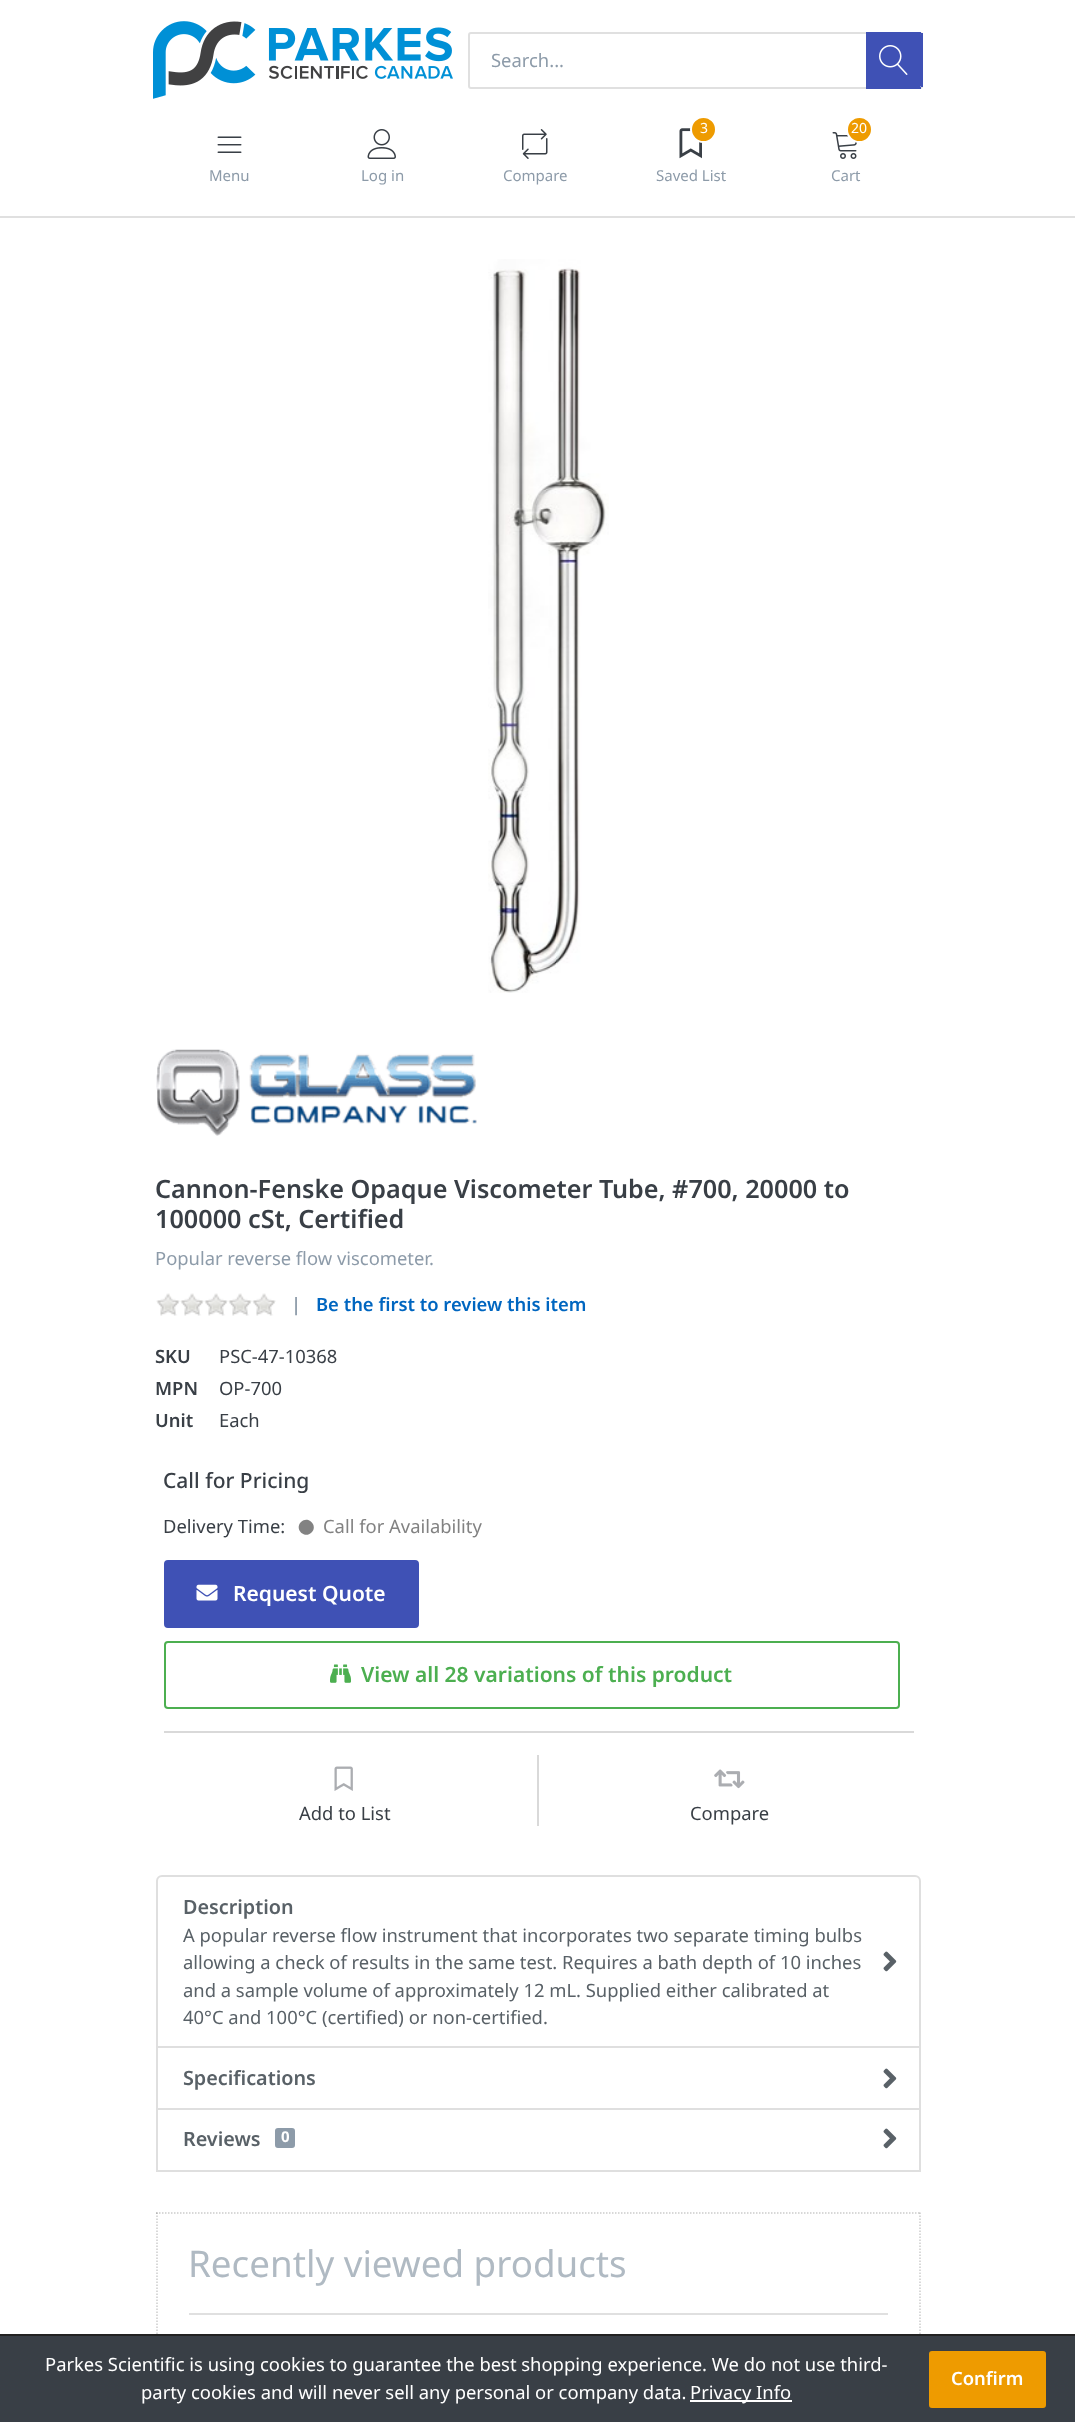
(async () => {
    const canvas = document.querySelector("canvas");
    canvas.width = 1075;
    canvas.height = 2422;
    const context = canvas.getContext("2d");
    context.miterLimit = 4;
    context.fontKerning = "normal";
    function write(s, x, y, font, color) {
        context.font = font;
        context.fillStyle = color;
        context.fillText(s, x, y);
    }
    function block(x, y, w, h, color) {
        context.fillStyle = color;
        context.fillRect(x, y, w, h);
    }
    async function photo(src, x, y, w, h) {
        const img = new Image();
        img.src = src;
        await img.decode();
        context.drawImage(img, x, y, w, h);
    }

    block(0, 0, 1075, 2422, "rgb(255, 255, 255)");
    block(0, 216, 1075, 2, "rgb(224, 224, 224)");
    await photo("media/1.png", 153, 21, 300, 78);
    context.beginPath();
    context.roundRect(469, 33, 453, 55, 2);
    context.strokeStyle = "rgb(224, 224, 224)";
    context.lineWidth = 2;
    context.stroke();
    write("Search...", 491, 67, "18.4px Noto Sans", "rgb(141, 155, 169)");
    context.fillStyle = "rgb(63, 81, 181)";
    context.beginPath();
    context.roundRect(866, 33, 55, 54, [0, 1.5, 1.5, 0]);
    context.fill();
    block(866, 32, 55, 2, "rgb(63, 81, 181)");
    block(921, 33, 2, 54, "rgb(63, 81, 181)");
    block(866, 87, 55, 2, "rgb(63, 81, 181)");
    await photo("media/2.png", 879, 45, 29, 30);
    await photo("media/3.png", 217, 136, 25, 17);
    write("Menu", 209, 181, "15px Noto Sans", "rgb(141, 155, 169)");
    await photo("media/4.png", 367, 129, 29, 30);
    write("Log in", 361, 181, "15px Noto Sans", "rgb(141, 155, 169)");
    await photo("media/5.png", 522, 129, 26, 30);
    write("Compare", 503, 181, "15px Noto Sans", "rgb(141, 155, 169)");
    await photo("media/6.png", 679, 128, 23, 31);
    context.fillStyle = "rgb(238, 155, 0)";
    context.beginPath();
    context.arc(703.5, 129.5, 12.5, 0, Math.PI * 2);
    context.fill();
    context.strokeStyle = "rgb(255, 255, 255)";
    context.stroke();
    write("3", 700, 133, "14px Noto Sans", "rgb(255, 255, 255)");
    write("Saved List", 656, 181, "15px Noto Sans", "rgb(141, 155, 169)");
    await photo("media/7.png", 832, 132, 25, 27);
    context.fillStyle = "rgb(238, 155, 0)";
    context.beginPath();
    context.arc(859.5, 129.5, 12.5, 0, Math.PI * 2);
    context.fill();
    context.stroke();
    write("20", 851, 133, "14px Noto Sans", "rgb(255, 255, 255)");
    write("Cart", 831, 181, "15px Noto Sans", "rgb(141, 155, 169)");
    await photo("media/8.png", 488, 259, 121, 734);
    await photo("media/9.png", 156, 1049, 321, 87);
    write("Cannon-Fenske Opaque Viscometer Tube, #700, 20000 to", 155, 1198, "600 25.2px Noto Sans", "rgb(57, 63, 70)");
    write("100000 cSt, Certified", 155, 1228, "600 25.2px Noto Sans", "rgb(57, 63, 70)");
    write("Popular reverse flow viscometer.", 155, 1265, "18.4px Noto Sans", "rgb(141, 155, 169)");
    await photo("media/10.png", 156, 1293, 120, 23);
    write("|", 291, 1311, "600 18.4px Noto Sans", "rgb(141, 155, 169)");
    write("Be the first to review this item", 316, 1311, "600 18.4px Noto Sans", "rgb(0, 102, 192)");
    write("SKU", 155, 1363, "600 18.4px Noto Sans", "rgb(57, 63, 70)");
    write("PSC-47-10368", 219, 1363, "18.4px Noto Sans", "rgb(57, 63, 70)");
    write("MPN", 155, 1395, "600 18.4px Noto Sans", "rgb(57, 63, 70)");
    write("OP-700", 219, 1395, "18.4px Noto Sans", "rgb(57, 63, 70)");
    write("Unit", 155, 1427, "600 18.4px Noto Sans", "rgb(57, 63, 70)");
    write("Each", 219, 1427, "18.4px Noto Sans", "rgb(57, 63, 70)");
    write("Call for Pricing", 163, 1488, "500 21px Noto Sans", "rgb(57, 63, 70)");
    write("Delivery Time:", 163, 1533, "18.4px Noto Sans", "rgb(57, 63, 70)");
    context.fillStyle = "rgb(130, 130, 130)";
    context.beginPath();
    context.moveTo(301, 1522);
    context.bezierCurveTo(308, 1515, 318.5, 1525.5, 311.5, 1532.5);
    context.bezierCurveTo(304.5, 1539.5, 294, 1529, 301, 1522);
    context.closePath();
    context.fill();
    write("Call for Availability", 323, 1533, "18.4px Noto Sans", "rgb(130, 130, 130)");
    context.fillStyle = "rgb(63, 81, 181)";
    context.beginPath();
    context.roundRect(165, 1561, 253, 66, 3);
    context.fill();
    context.strokeStyle = "rgb(63, 81, 181)";
    context.stroke();
    await photo("media/11.png", 196, 1584, 22, 17);
    write("Request Quote", 233, 1601, "600 21px Noto Sans", "rgb(255, 255, 255)");
    context.beginPath();
    context.roundRect(165, 1642, 734, 66, 3);
    context.strokeStyle = "rgb(76, 175, 80)";
    context.stroke();
    await photo("media/12.png", 330, 1664, 21, 19);
    write("View all 28 variations of this product", 361, 1682, "600 21px Noto Sans", "rgb(76, 175, 80)");
    block(164, 1731, 750, 2, "rgb(217, 217, 217)");
    block(537, 1755, 2, 71, "rgb(217, 217, 217)");
    await photo("media/13.png", 334, 1766, 19, 25);
    write("Add to List", 299, 1820, "18.4px Noto Sans", "rgb(57, 63, 70)");
    await photo("media/14.png", 714, 1769, 31, 20);
    write("Compare", 690, 1820, "18.4px Noto Sans", "rgb(57, 63, 70)");
    context.beginPath();
    context.roundRect(157, 1876, 763, 172, [5, 5, 0, 0]);
    context.strokeStyle = "rgb(223, 223, 223)";
    context.stroke();
    write("Description", 183, 1914, "600 19.75px Noto Sans", "rgb(89, 97, 103)");
    write("A popular reverse flow instrument that incorporates two separate timing bulbs", 183, 1942, "18.4px Noto Sans", "rgb(89, 97, 103)");
    write("allowing a check of results in the same test. Requires a bath depth of 10 inches", 183, 1969, "18.4px Noto Sans", "rgb(89, 97, 103)");
    write("and a sample volume of approximately 12 mL. Supplied either calibrated at", 183, 1997, "18.4px Noto Sans", "rgb(89, 97, 103)");
    write("40°C and 100°C (certified) or non-certified.", 183, 2024, "18.4px Noto Sans", "rgb(89, 97, 103)");
    await photo("media/15.png", 883, 1951, 14, 21);
    block(158, 2048, 761, 1, "rgb(255, 255, 255)");
    context.strokeRect(157, 2047, 763, 63);
    write("Specifications", 183, 2085, "600 19.75px Noto Sans", "rgb(89, 97, 103)");
    await photo("media/15.png", 883, 2068, 14, 21);
    block(158, 2110, 761, 1, "rgb(255, 255, 255)");
    context.strokeRect(157, 2109, 763, 62);
    write("Reviews", 183, 2146, "600 19.75px Noto Sans", "rgb(89, 97, 103)");
    context.fillStyle = "rgb(141, 155, 169)";
    context.beginPath();
    context.roundRect(274, 2127, 22, 22, 4);
    context.fill();
    context.strokeStyle = "rgb(255, 255, 255)";
    context.stroke();
    write("0", 281, 2142, "bold 15px Noto Sans", "rgb(255, 255, 255)");
    await photo("media/15.png", 883, 2128, 14, 21);
    context.beginPath();
    context.moveTo(156, 2213);
    context.lineTo(921, 2213);
    context.strokeStyle = "rgb(204, 204, 204)";
    context.lineWidth = 1.5;
    context.setLineDash([1.5, 1.5]);
    context.stroke();
    context.beginPath();
    context.moveTo(920, 2212.5);
    context.lineTo(920, 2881.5);
    context.strokeStyle = "rgba(0, 0, 0, 0.2)";
    context.stroke();
    context.beginPath();
    context.moveTo(157, 2212.5);
    context.lineTo(157, 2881.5);
    context.stroke();
    block(189, 2313, 699, 2, "rgb(224, 224, 224)");
    write("Recently viewed products", 188, 2277, "36.75px Noto Sans", "rgb(176, 186, 195)");
    block(0, 2336, 1075, 86, "rgb(57, 63, 70)");
    block(0, 2334, 1075, 2, "rgb(34, 34, 34)");
    write("Parkes Scientific is using cookies to guarantee the best shopping experience. We do not use third-", 45, 2371, "18.4px Noto Sans", "rgb(255, 255, 255)");
    write("party cookies and will never sell any personal or company data.", 141, 2399, "18.4px Noto Sans", "rgb(255, 255, 255)");
    block(690, 2400, 102, 2, "rgb(255, 255, 255)");
    write("Privacy Info", 690, 2399, "18.4px Noto Sans", "rgb(255, 255, 255)");
    context.fillStyle = "rgb(238, 155, 0)";
    context.beginPath();
    context.roundRect(930, 2352, 115, 55, 2);
    context.fill();
    context.strokeStyle = "rgb(238, 155, 0)";
    context.lineWidth = 2;
    context.setLineDash([]);
    context.stroke();
    write("Confirm", 951, 2385, "600 18.4px Noto Sans", "rgb(255, 255, 255)");
})();
